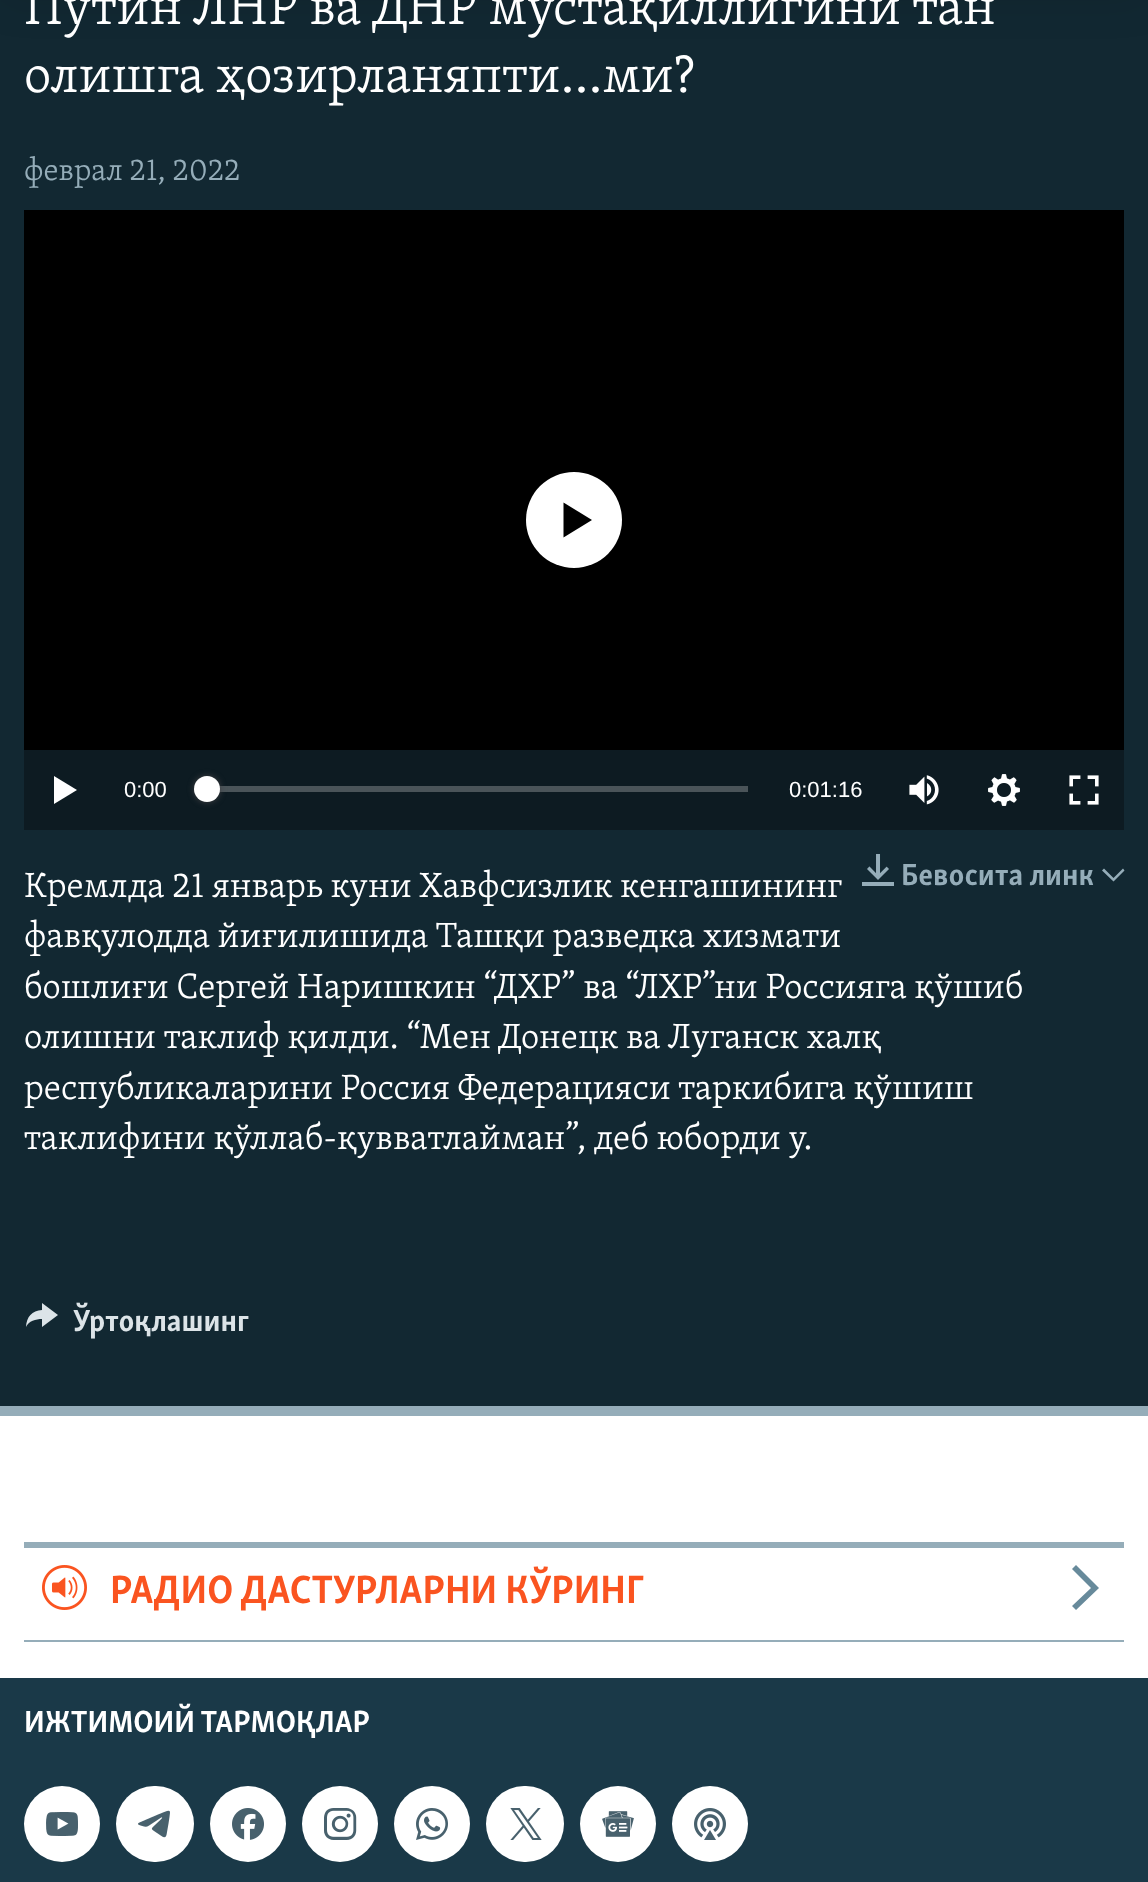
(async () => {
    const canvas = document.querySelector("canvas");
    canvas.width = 1148;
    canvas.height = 1882;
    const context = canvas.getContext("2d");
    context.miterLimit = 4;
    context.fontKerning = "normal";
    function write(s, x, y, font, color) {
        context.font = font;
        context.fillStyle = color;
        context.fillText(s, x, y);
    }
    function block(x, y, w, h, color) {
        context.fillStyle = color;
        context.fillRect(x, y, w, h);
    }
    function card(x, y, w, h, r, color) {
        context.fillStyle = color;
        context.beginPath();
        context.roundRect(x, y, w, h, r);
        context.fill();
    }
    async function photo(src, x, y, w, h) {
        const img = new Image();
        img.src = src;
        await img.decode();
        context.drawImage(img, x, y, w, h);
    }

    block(0, 0, 1148, 1882, "rgb(255, 255, 255)");
    block(0, 0, 1148, 1406, "rgb(18, 40, 50)");
    context.fillStyle = "rgba(0, 0, 0, 0.1)";
    context.filter = "blur(20px)";
    context.beginPath();
    context.rect(0, -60, 1148, 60);
    context.fill();
    context.filter = "none";
    block(0, 1406, 1148, 10, "rgb(149, 173, 185)");
    write("Путин ЛНР ва ДНР мустақиллигини тан", 24, 24, "300 54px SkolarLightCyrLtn", "rgb(255, 255, 255)");
    write("олишга ҳозирланяпти...ми?", 24, 92, "300 54px SkolarLightCyrLtn", "rgb(255, 255, 255)");
    write("феврал 21, 2022", 24, 180, "300 31.5px SkolarLightCyrLtn", "rgb(149, 173, 185)");
    block(24, 210, 1100, 540, "rgb(0, 0, 0)");
    context.fillStyle = "rgb(255, 255, 255)";
    context.beginPath();
    context.arc(574, 520, 48, 0, Math.PI * 2);
    context.fill();
    context.fillStyle = "rgb(0, 0, 0)";
    context.beginPath();
    context.moveTo(563.5, 537.5);
    context.lineTo(592, 520);
    context.lineTo(563.5, 502.5);
    context.closePath();
    context.fill();
    block(24, 750, 1100, 80, "rgb(13, 27, 34)");
    context.fillStyle = "rgb(255, 255, 255)";
    context.beginPath();
    context.moveTo(54, 804);
    context.lineTo(77, 790);
    context.lineTo(54, 776);
    context.closePath();
    context.fill();
    write("0:00", 124, 797, "22px Liberation Sans", "rgb(255, 255, 255)");
    block(219, 786, 529, 6, "rgb(74, 84, 89)");
    context.fillStyle = "rgb(65, 65, 68)";
    context.filter = "blur(3px)";
    context.beginPath();
    context.roundRect(194, 776, 26, 26, 13);
    context.fill();
    context.filter = "none";
    context.fillStyle = "rgb(255, 255, 255)";
    context.beginPath();
    context.arc(207, 789, 13, 0, Math.PI * 2);
    context.fill();
    write("0:01:16", 789, 797, "22px Liberation Sans", "rgb(255, 255, 255)");
    await photo("media/1.png", 909, 775, 30, 30);
    await photo("media/2.png", 988, 774, 32, 32);
    await photo("media/3.png", 1069, 775, 30, 30);
    await photo("media/4.png", 862, 854, 32, 32);
    write("Бевосита линк", 901, 885, "bold 31.5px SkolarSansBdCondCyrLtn", "rgb(149, 173, 185)");
    context.beginPath();
    context.moveTo(1102, 870.5);
    context.lineTo(1113.5, 881.5);
    context.lineTo(1124.5, 870.5);
    context.lineTo(1123, 868.5);
    context.lineTo(1113.5, 878);
    context.lineTo(1104, 868.5);
    context.closePath();
    context.fill();
    write("Кремлда 21 январь куни Хавфсизлик кенгашининг", 24, 897, "300 36px SkolarLightCyrLtn", "rgb(255, 255, 255)");
    write("фавқулодда йиғилишида Ташқи разведка хизмати", 24, 947, "300 36px SkolarLightCyrLtn", "rgb(255, 255, 255)");
    write("бошлиғи Сергей Наришкин “ДХР” ва “ЛХР”ни Россияга қўшиб", 24, 998, "300 36px SkolarLightCyrLtn", "rgb(255, 255, 255)");
    write("олишни таклиф қилди. “Мен Донецк ва Луганск халқ", 24, 1048, "300 36px SkolarLightCyrLtn", "rgb(255, 255, 255)");
    write("республикаларини Россия Федерацияси таркибига қўшиш", 24, 1099, "300 36px SkolarLightCyrLtn", "rgb(255, 255, 255)");
    write("таклифини қўллаб-қувватлайман”, деб юборди у.", 24, 1149, "300 36px SkolarLightCyrLtn", "rgb(255, 255, 255)");
    context.fillStyle = "rgb(220, 228, 232)";
    context.beginPath();
    context.moveTo(26, 1327);
    context.bezierCurveTo(26.5, 1317, 32, 1310.5, 42, 1310);
    context.lineTo(42, 1303);
    context.lineTo(58, 1315);
    context.lineTo(42, 1327);
    context.lineTo(42, 1319);
    context.bezierCurveTo(36, 1319, 28.5, 1321, 26, 1327);
    context.closePath();
    context.fill();
    write("Ўртоқлашинг", 73, 1331, "bold 31.5px SkolarSansBdCondCyrLtn", "rgb(220, 228, 232)");
    block(24, 1542, 1100, 6, "rgb(149, 173, 185)");
    block(24, 1640, 1100, 2, "rgb(149, 173, 185)");
    await photo("media/5.png", 42, 1565, 45, 45);
    write("РАДИО ДАСТУРЛАРНИ КЎРИНГ", 110, 1603, "bold 40.5px SkolarSansBdCondCyrLtn", "rgb(250, 84, 32)");
    context.fillStyle = "rgb(103, 138, 155)";
    context.beginPath();
    context.moveTo(1076, 1610);
    context.lineTo(1099, 1588);
    context.lineTo(1076, 1565);
    context.lineTo(1072, 1569);
    context.lineTo(1091, 1588);
    context.lineTo(1072, 1606);
    context.closePath();
    context.fill();
    block(0, 1678, 1148, 204, "rgb(26, 57, 72)");
    write("ИЖТИМОИЙ ТАРМОҚЛАР", 24, 1732, "bold 31.5px SkolarSansBdCondCyrLtn", "rgb(255, 255, 255)");
    context.beginPath();
    context.arc(62, 1824, 38, 0, Math.PI * 2);
    context.fill();
    await photo("media/6.png", 46, 1812, 32, 24);
    card(116, 1786, 78, 76, 38, "rgb(255, 255, 255)");
    await photo("media/7.png", 138, 1810, 32, 28);
    context.beginPath();
    context.arc(248, 1824, 38, 0, Math.PI * 2);
    context.fill();
    await photo("media/8.png", 232, 1808, 32, 32);
    context.beginPath();
    context.arc(340, 1824, 38, 0, Math.PI * 2);
    context.fill();
    await photo("media/9.png", 324, 1808, 33, 32);
    context.beginPath();
    context.arc(432, 1824, 38, 0, Math.PI * 2);
    context.fill();
    await photo("media/10.png", 416, 1808, 32, 32);
    card(486, 1786, 78, 76, 38, "rgb(255, 255, 255)");
    await photo("media/11.png", 510, 1808, 32, 32);
    context.beginPath();
    context.arc(618, 1824, 38, 0, Math.PI * 2);
    context.fill();
    await photo("media/12.png", 602, 1811, 32, 26);
    context.beginPath();
    context.arc(710, 1824, 38, 0, Math.PI * 2);
    context.fill();
    await photo("media/13.png", 694, 1808, 32, 32);
})();
